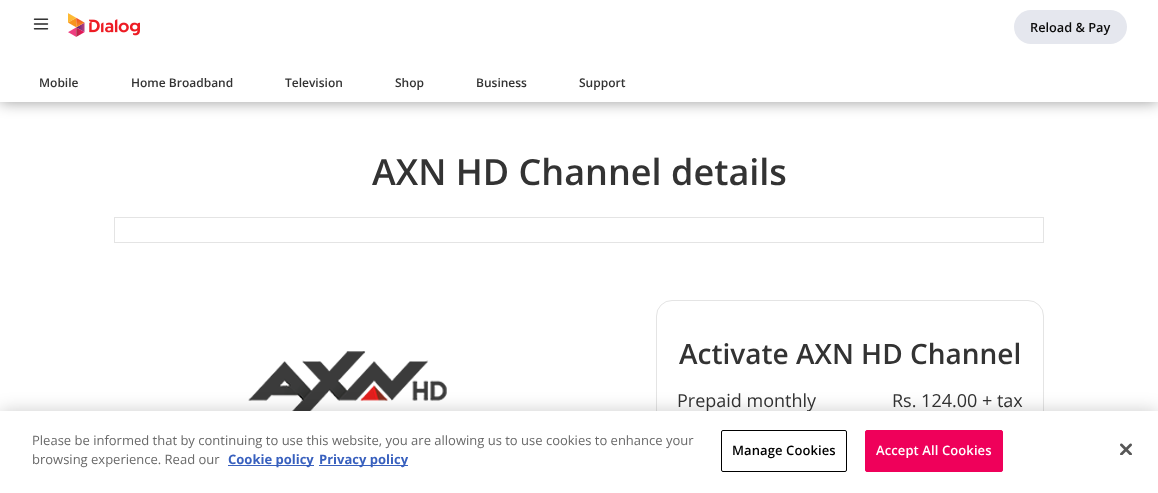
(async () => {
    const canvas = document.querySelector("canvas");
    canvas.width = 1158;
    canvas.height = 493;
    const context = canvas.getContext("2d");
    context.miterLimit = 4;
    context.fontKerning = "normal";
    function write(s, x, y, font, color) {
        context.font = font;
        context.fillStyle = color;
        context.fillText(s, x, y);
    }
    function block(x, y, w, h, color) {
        context.fillStyle = color;
        context.fillRect(x, y, w, h);
    }
    function card(x, y, w, h, r, color) {
        context.fillStyle = color;
        context.beginPath();
        context.roundRect(x, y, w, h, r);
        context.fill();
    }
    async function photo(src, x, y, w, h) {
        const img = new Image();
        img.src = src;
        await img.decode();
        context.drawImage(img, x, y, w, h);
    }

    block(0, 0, 1158, 493, "rgb(255, 255, 255)");
    context.fillStyle = "rgba(0, 0, 0, 0.4)";
    context.filter = "blur(7.5px)";
    context.beginPath();
    context.rect(0, 0, 1158, 102);
    context.fill();
    context.filter = "none";
    block(0, 0, 1158, 102, "rgb(255, 255, 255)");
    await photo("media/1.png", 33, 18, 16, 12);
    await photo("media/2.png", 68, 13, 72, 24);
    card(1014, 10, 113, 34, 17, "rgb(229, 231, 238)");
    write("Reload & Pay", 1030, 32, "600 12.75px Open Sans", "rgb(11, 11, 11)");
    write("Mobile", 39, 87, "600 12px Open Sans", "rgb(51, 51, 51)");
    write("Home Broadband", 131, 87, "600 12px Open Sans", "rgb(51, 51, 51)");
    write("Television", 285, 87, "600 12px Open Sans", "rgb(51, 51, 51)");
    write("Shop", 395, 87, "600 12px Open Sans", "rgb(51, 51, 51)");
    write("Business", 476, 87, "600 12px Open Sans", "rgb(51, 51, 51)");
    write("Support", 579, 87, "600 12px Open Sans", "rgb(51, 51, 51)");
    write("AXN HD Channel details", 372, 185, "600 36px Open Sans", "rgb(51, 51, 51)");
    context.strokeStyle = "rgb(228, 228, 228)";
    context.strokeRect(114.5, 217.5, 929, 25);
    await photo("media/3.png", 248, 351, 199, 60);
    context.beginPath();
    context.roundRect(656.5, 300.5, 387, 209, 15.5);
    context.stroke();
    write("Activate AXN HD Channel", 679, 364, "600 28px Open Sans", "rgb(51, 51, 51)");
    write("Prepaid monthly", 677, 407, "18px Open Sans", "rgb(51, 51, 51)");
    write("Rs. 124.00 + tax", 892, 407, "18px Open Sans", "rgb(51, 51, 51)");
    context.fillStyle = "rgba(0, 0, 0, 0.2)";
    context.filter = "blur(9px)";
    context.beginPath();
    context.rect(0, 411, 1158, 82);
    context.fill();
    context.filter = "none";
    block(0, 411, 1158, 82, "rgb(255, 255, 255)");
    write("Please be informed that by continuing to use this website, you are allowing us to use cookies to enhance your", 32, 445, "13px Open Sans", "rgb(105, 105, 105)");
    write("browsing experience. Read our", 32, 464, "13px Open Sans", "rgb(105, 105, 105)");
    block(228, 465, 86, 1, "rgb(56, 96, 190)");
    write("Cookie policy", 228, 464, "bold 13px Open Sans", "rgb(56, 96, 190)");
    block(319, 465, 89, 1, "rgb(56, 96, 190)");
    write("Privacy policy", 319, 464, "bold 13px Open Sans", "rgb(56, 96, 190)");
    context.beginPath();
    context.roundRect(721.5, 430.5, 125, 41, 1.5);
    context.strokeStyle = "rgb(0, 0, 0)";
    context.stroke();
    context.letterSpacing = "0.1px";
    write("Manage Cookies", 732, 455, "600 13px Open Sans", "rgb(0, 0, 0)");
    context.fillStyle = "rgb(239, 0, 90)";
    context.beginPath();
    context.roundRect(865.5, 430.5, 137, 41, 1.5);
    context.fill();
    context.strokeStyle = "rgb(239, 0, 90)";
    context.stroke();
    write("Accept All Cookies", 876, 455, "600 13px Open Sans", "rgb(255, 255, 255)");
    await photo("media/4.png", 1120, 443, 12, 12);
})();
